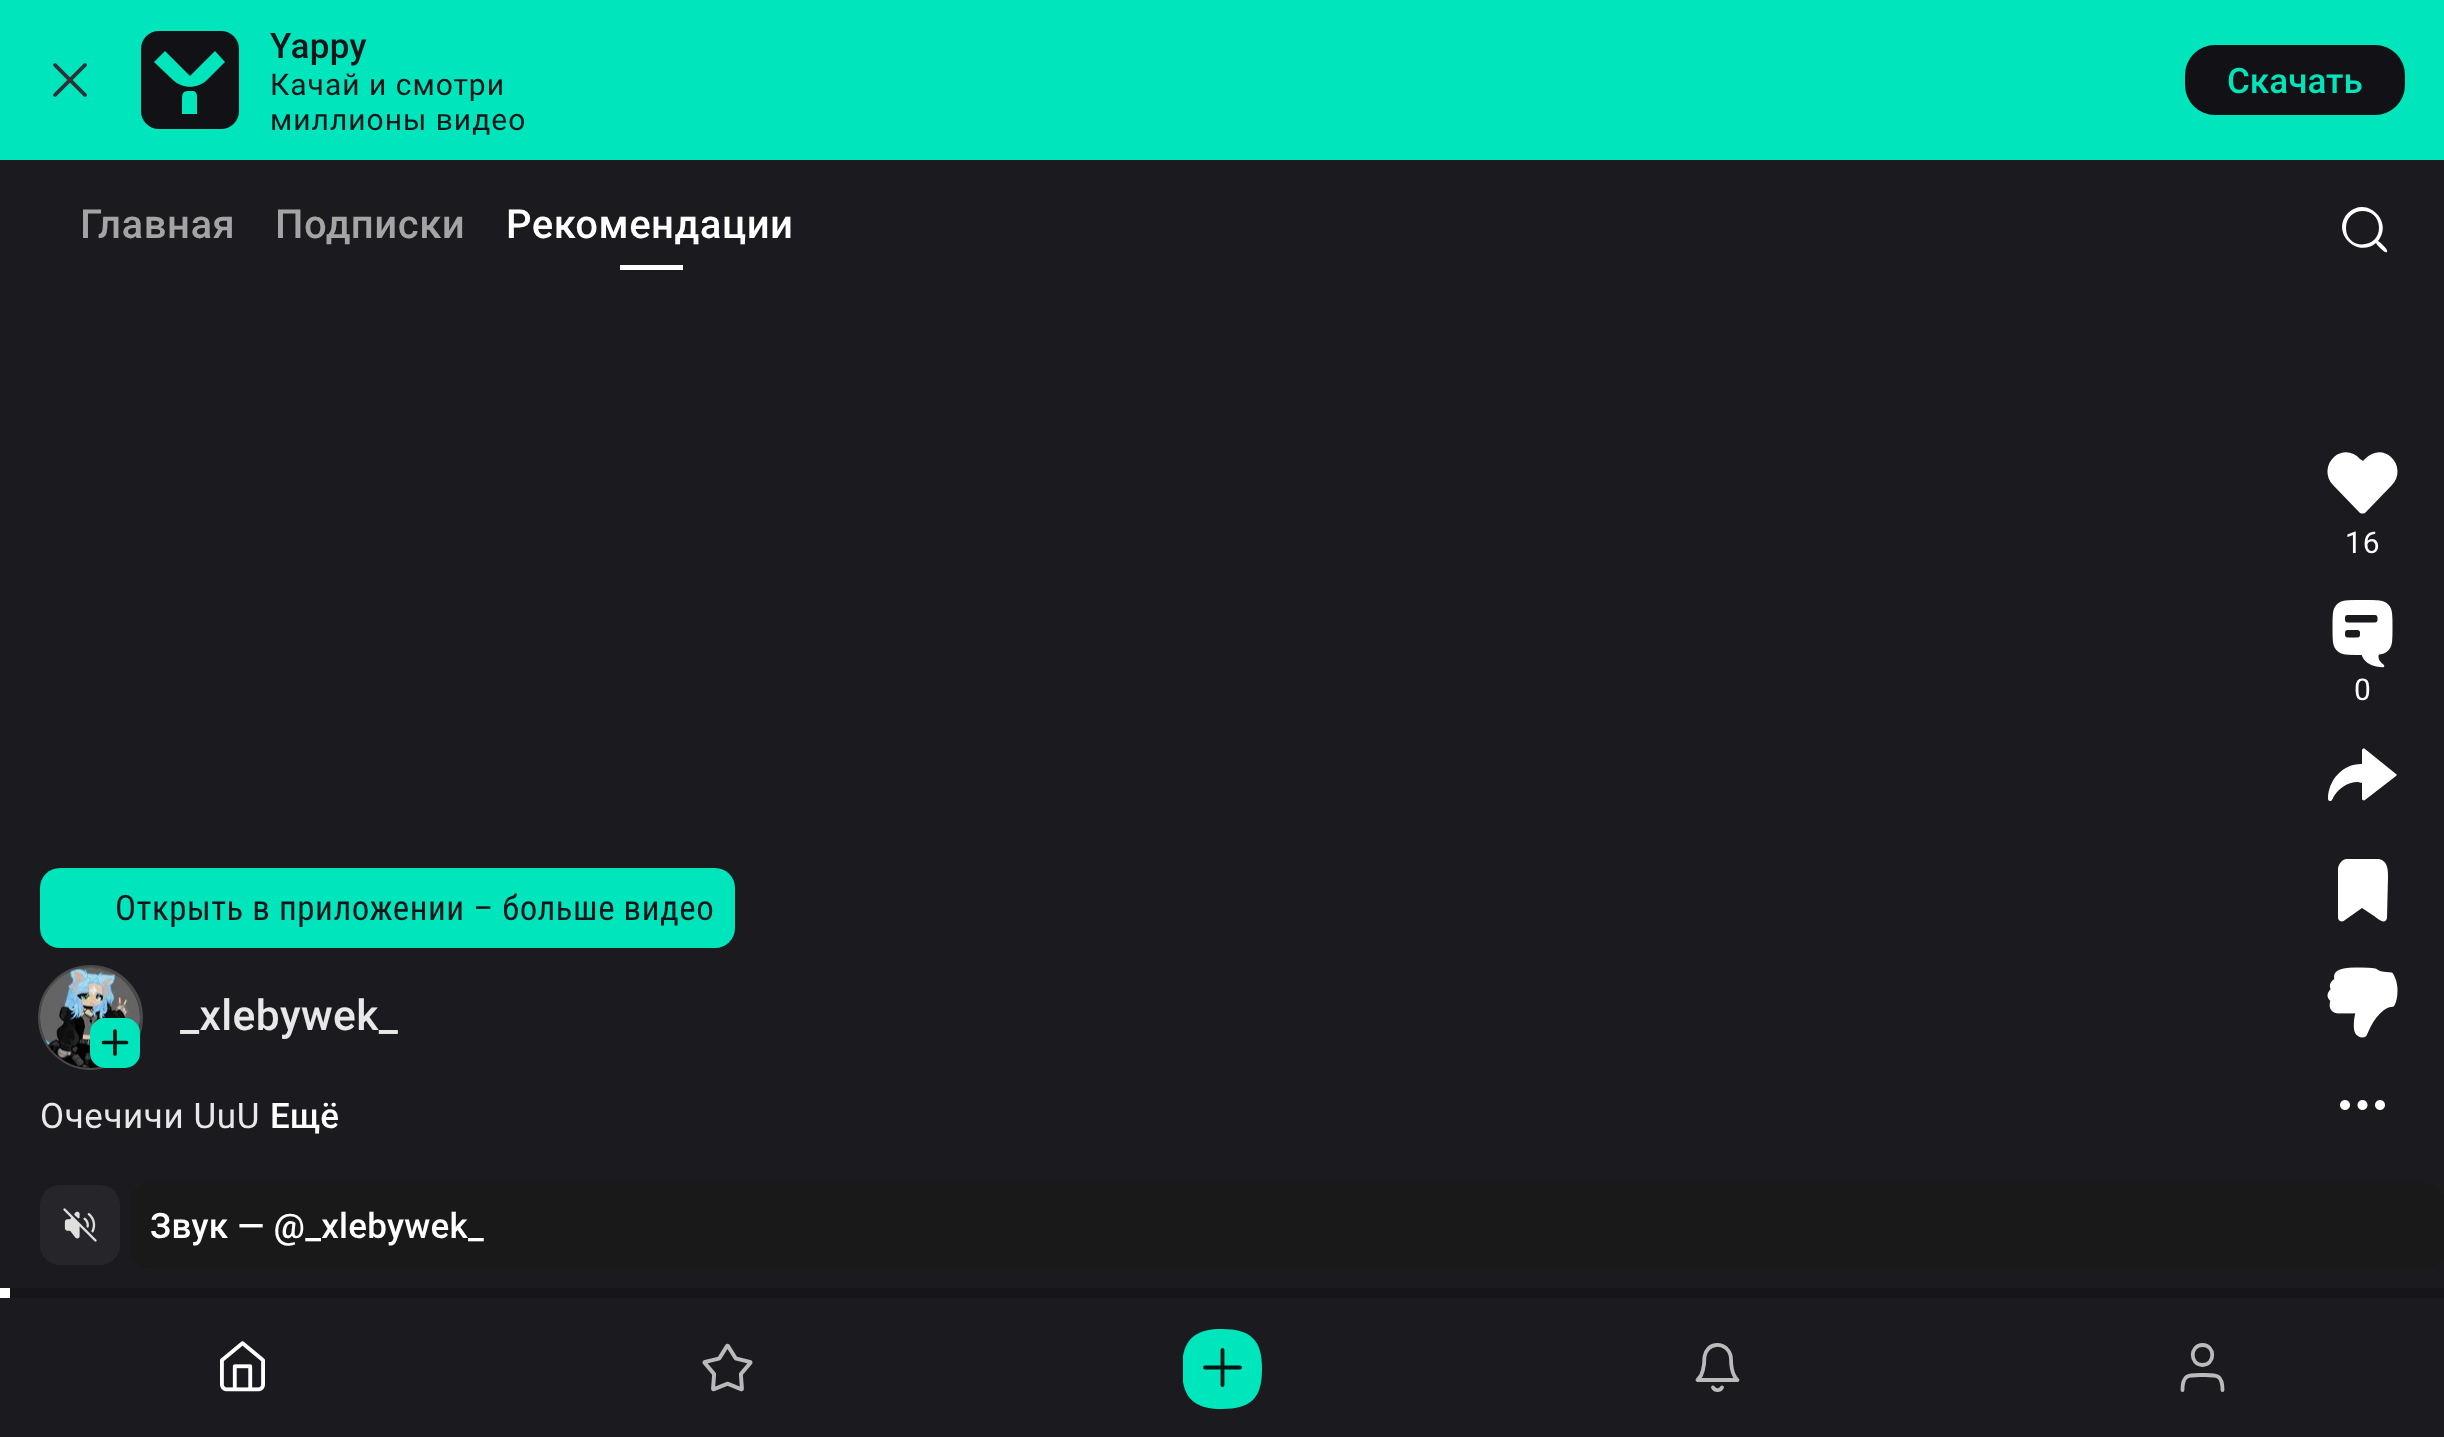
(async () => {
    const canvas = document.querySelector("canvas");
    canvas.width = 2444;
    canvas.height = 1437;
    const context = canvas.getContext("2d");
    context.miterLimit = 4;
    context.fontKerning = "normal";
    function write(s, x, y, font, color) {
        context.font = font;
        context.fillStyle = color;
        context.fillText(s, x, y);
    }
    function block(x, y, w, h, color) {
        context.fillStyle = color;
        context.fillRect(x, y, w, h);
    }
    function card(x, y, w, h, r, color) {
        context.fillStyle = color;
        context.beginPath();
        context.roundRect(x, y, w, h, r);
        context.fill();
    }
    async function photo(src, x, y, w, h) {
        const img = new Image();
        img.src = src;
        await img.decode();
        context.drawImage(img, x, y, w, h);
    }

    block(0, 0, 2444, 1437, "rgb(27, 27, 31)");
    block(0, 0, 2444, 160, "rgb(0, 229, 188)");
    await photo("media/1.png", 53, 63, 34, 34);
    card(141, 31, 98, 98, 18, "rgb(18, 18, 22)");
    context.fillStyle = "rgb(0, 229, 188)";
    context.beginPath();
    context.moveTo(193, 91);
    context.bezierCurveTo(186, 91, 182, 90, 182, 99);
    context.lineTo(182, 114);
    context.lineTo(197, 114);
    context.lineTo(197, 96);
    context.bezierCurveTo(197, 93, 195, 91, 193, 91);
    context.closePath();
    context.moveTo(207, 80);
    context.lineTo(225, 62);
    context.lineTo(215, 51);
    context.lineTo(190, 76);
    context.lineTo(165, 51);
    context.lineTo(154, 62);
    context.lineTo(173, 80);
    context.bezierCurveTo(182, 89, 198, 89, 207, 80);
    context.closePath();
    context.fill();
    context.letterSpacing = "0.25px";
    write("Yappy", 270, 58, "500 35px Roboto", "rgb(22, 22, 26)");
    context.letterSpacing = "1px";
    write("Качай и смотри", 270, 95, "30px Roboto", "rgb(22, 22, 26)");
    write("миллионы видео", 270, 130, "30px Roboto", "rgb(22, 22, 26)");
    card(2185, 45, 220, 70, 30, "rgb(18, 18, 22)");
    context.letterSpacing = "0px";
    write("Скачать", 2227, 93, "500 35px Roboto", "rgb(0, 229, 188)");
    context.letterSpacing = "0.5px";
    write("Главная", 80, 238, "500 40px Roboto", "rgb(164, 164, 165)");
    write("Подписки", 275, 238, "500 40px Roboto", "rgb(164, 164, 165)");
    write("Рекомендации", 506, 238, "500 40px Roboto", "rgb(255, 255, 255)");
    block(620, 265, 63, 5, "rgb(255, 255, 255)");
    context.beginPath();
    context.moveTo(2376, 243);
    context.bezierCurveTo(2357, 259, 2330, 232, 2348, 213);
    context.bezierCurveTo(2367, 195, 2394, 222, 2378, 241);
    context.bezierCurveTo(2380, 242, 2389, 250, 2387, 252);
    context.bezierCurveTo(2385, 254, 2377, 245, 2376, 243);
    context.closePath();
    context.moveTo(2346, 228);
    context.bezierCurveTo(2346, 206, 2378, 205, 2379, 227);
    context.bezierCurveTo(2380, 249, 2346, 251, 2346, 228);
    context.closePath();
    context.fill("evenodd");
    context.beginPath();
    context.moveTo(2391, 457);
    context.bezierCurveTo(2381, 448, 2370, 453, 2363, 461);
    context.lineTo(2360, 459);
    context.bezierCurveTo(2353, 451, 2342, 450, 2334, 457);
    context.bezierCurveTo(2326, 464, 2325, 477, 2333, 485);
    context.lineTo(2359, 512);
    context.bezierCurveTo(2361, 514, 2364, 514, 2366, 512);
    context.lineTo(2392, 485);
    context.bezierCurveTo(2400, 477, 2399, 464, 2391, 457);
    context.closePath();
    context.fill();
    context.letterSpacing = "1px";
    write("16", 2345, 553, "30px Roboto", "rgb(255, 255, 255)");
    await photo("media/2.png", 2332, 600, 61, 68);
    write("0", 2354, 700, "30px Roboto", "rgb(255, 255, 255)");
    context.beginPath();
    context.moveTo(2361, 764);
    context.lineTo(2362, 764);
    context.lineTo(2362, 750);
    context.bezierCurveTo(2362, 749, 2364, 748, 2365, 749);
    context.lineTo(2396, 774);
    context.bezierCurveTo(2397, 774, 2397, 775, 2396, 776);
    context.lineTo(2365, 800);
    context.bezierCurveTo(2364, 801, 2362, 800, 2362, 799);
    context.lineTo(2362, 783);
    context.lineTo(2358, 782);
    context.bezierCurveTo(2347, 782, 2337, 789, 2332, 800);
    context.bezierCurveTo(2331, 802, 2328, 801, 2328, 799);
    context.bezierCurveTo(2328, 780, 2343, 764, 2361, 764);
    context.closePath();
    context.fill("evenodd");
    context.beginPath();
    context.moveTo(2341, 862);
    context.bezierCurveTo(2344, 858, 2348, 859, 2353, 859);
    context.lineTo(2379, 859);
    context.bezierCurveTo(2388, 861, 2388, 870, 2388, 877);
    context.lineTo(2387, 918);
    context.bezierCurveTo(2385, 926, 2377, 918, 2374, 916);
    context.lineTo(2362, 908);
    context.lineTo(2345, 920);
    context.bezierCurveTo(2344, 921, 2342, 922, 2340, 921);
    context.bezierCurveTo(2338, 920, 2338, 918, 2338, 916);
    context.lineTo(2338, 869);
    context.bezierCurveTo(2338, 867, 2339, 864, 2341, 862);
    context.closePath();
    context.fill("evenodd");
    await photo("media/3.png", 2327, 967, 71, 71);
    await photo("media/4.png", 2340, 1100, 45, 10);
    card(40, 868, 695, 80, 20, "rgb(0, 229, 188)");
    context.letterSpacing = "0.5px";
    write("Открыть в приложении – больше видео", 115, 920, "35px Roboto Condensed", "rgb(22, 22, 26)");
    context.beginPath();
    context.arc(90.5, 1017.5, 51, 0, Math.PI * 2);
    context.strokeStyle = "rgb(73, 73, 76)";
    context.lineWidth = 3;
    context.stroke();
    context.fillStyle = "rgb(27, 27, 31)";
    context.beginPath();
    context.arc(90, 1018, 50, 0, Math.PI * 2);
    context.fill();
    await photo("media/5.png", 40, 967, 100, 101);
    card(90, 1018, 50, 50, 15, "rgb(0, 229, 188)");
    context.beginPath();
    context.moveTo(115, 1031);
    context.lineTo(115, 1054);
    context.moveTo(103.5, 1042.5);
    context.lineTo(126.5, 1042.5);
    context.strokeStyle = "rgb(0, 23, 19)";
    context.lineWidth = 3.7;
    context.lineCap = "round";
    context.lineJoin = "round";
    context.stroke();
    context.letterSpacing = "0.4px";
    write("_xlebywek_", 180, 1030, "500 42.5px Roboto", "rgb(232, 232, 233)");
    context.letterSpacing = "0.6px";
    write("Очечичи UuU", 40, 1128, "35px Roboto", "rgb(232, 232, 233)");
    context.letterSpacing = "0.25px";
    write("Ещё", 270, 1128, "500 35px Roboto", "rgb(255, 255, 255)");
    card(40, 1185, 80, 80, 20, "rgb(38, 38, 42)");
    await photo("media/6.png", 63, 1208, 34, 34);
    card(130, 1183, 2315, 85, 20, "rgb(25, 25, 25)");
    write("Звук — @_xlebywek_", 150, 1238, "500 35px Roboto", "rgb(255, 255, 255)");
    block(0, 1288, 10, 10, "rgb(255, 255, 255)");
    block(10, 1288, 2434, 10, "rgb(22, 22, 26)");
    await photo("media/7.png", 220, 1341, 45, 51);
    await photo("media/8.png", 702, 1343, 51, 49);
    context.save();
    context.beginPath();
    context.rect(1183, 1328, 80, 82);
    context.clip();
    context.fillStyle = "rgb(0, 230, 188)";
    context.beginPath();
    context.moveTo(1182, 1369);
    context.bezierCurveTo(1182, 1340, 1194, 1329, 1222, 1329);
    context.bezierCurveTo(1251, 1329, 1262, 1340, 1262, 1369);
    context.bezierCurveTo(1262, 1398, 1251, 1409, 1222, 1409);
    context.bezierCurveTo(1194, 1409, 1182, 1398, 1182, 1369);
    context.closePath();
    context.fill();
    context.restore();
    context.beginPath();
    context.moveTo(1222.5, 1350);
    context.lineTo(1222.5, 1385);
    context.moveTo(1205, 1367.5);
    context.lineTo(1240, 1367.5);
    context.lineWidth = 3.8;
    context.stroke();
    context.beginPath();
    context.moveTo(1731, 1359);
    context.bezierCurveTo(1731, 1355, 1729, 1351, 1726, 1348);
    context.bezierCurveTo(1723.5, 1346, 1719.5, 1344.5, 1716, 1345);
    context.bezierCurveTo(1710, 1345.5, 1705.5, 1350.5, 1704.5, 1356.5);
    context.lineTo(1704, 1364.5);
    context.bezierCurveTo(1703.5, 1368.5, 1702.5, 1372, 1701, 1375.5);
    context.lineTo(1697.5, 1380);
    context.lineTo(1737.5, 1380);
    context.bezierCurveTo(1737.5, 1380, 1731, 1375.5, 1731, 1359);
    context.closePath();
    context.moveTo(1722, 1387.5);
    context.bezierCurveTo(1720, 1391, 1715, 1391, 1713, 1387.5);
    context.strokeStyle = "rgb(187, 187, 188)";
    context.stroke();
    context.beginPath();
    context.moveTo(2222.5, 1390);
    context.bezierCurveTo(2222.5, 1374, 2216.5, 1375, 2202.5, 1375);
    context.bezierCurveTo(2188.5, 1375, 2182.5, 1374, 2182.5, 1390);
    context.moveTo(2202.5, 1365);
    context.bezierCurveTo(2215.5, 1365, 2215.5, 1345, 2202.5, 1345);
    context.bezierCurveTo(2189.5, 1345, 2189.5, 1365, 2202.5, 1365);
    context.closePath();
    context.stroke();
})();
